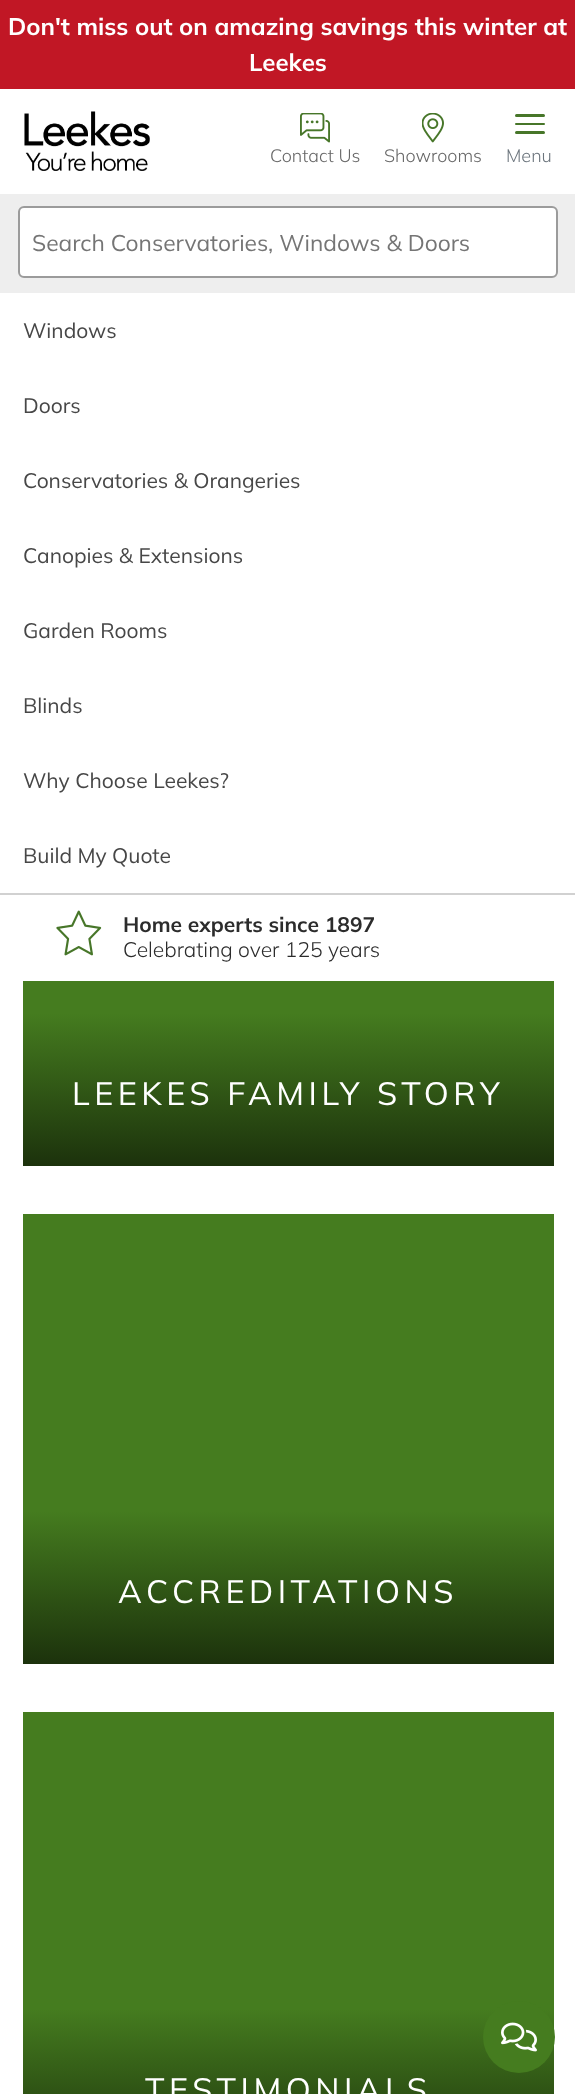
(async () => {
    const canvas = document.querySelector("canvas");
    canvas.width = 575;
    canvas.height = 2094;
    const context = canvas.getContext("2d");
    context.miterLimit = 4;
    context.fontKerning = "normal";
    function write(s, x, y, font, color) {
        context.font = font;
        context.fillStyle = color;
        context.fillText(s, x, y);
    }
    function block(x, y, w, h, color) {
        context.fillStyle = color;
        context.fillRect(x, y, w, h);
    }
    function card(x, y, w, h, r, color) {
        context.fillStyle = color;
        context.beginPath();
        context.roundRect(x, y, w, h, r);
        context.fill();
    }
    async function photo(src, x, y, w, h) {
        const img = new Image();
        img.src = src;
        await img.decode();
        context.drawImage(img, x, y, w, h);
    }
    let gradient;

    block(0, 0, 575, 2094, "rgb(255, 255, 255)");
    block(0, 0, 575, 89, "rgb(193, 23, 37)");
    write("Don't miss out on amazing savings this winter at", 8, 35, "bold 24px Mulish", "rgb(255, 255, 255)");
    write("Leekes", 249, 71, "bold 24px Mulish", "rgb(255, 255, 255)");
    await photo("media/1.png", 24, 111, 126, 60);
    await photo("media/2.png", 300, 113, 30, 30);
    write("Contact Us", 270, 162, "300 18px Mulish", "rgb(102, 102, 102)");
    await photo("media/3.png", 422, 113, 22, 30);
    write("Showrooms", 384, 162, "300 18px Mulish", "rgb(102, 102, 102)");
    card(515, 114, 30, 3, 1.5, "rgb(71, 118, 41)");
    card(515, 123, 30, 2, 1, "rgb(71, 118, 41)");
    card(515, 131, 30, 3, 1.5, "rgb(71, 118, 41)");
    write("Menu", 506, 162, "300 18px Mulish", "rgb(108, 117, 125)");
    block(0, 194, 575, 99, "rgb(238, 238, 238)");
    context.fillStyle = "rgb(255, 255, 255)";
    context.beginPath();
    context.roundRect(19, 207, 538, 70, 5);
    context.fill();
    context.strokeStyle = "rgb(155, 155, 155)";
    context.lineWidth = 2;
    context.stroke();
    write("Search Conservatories, Windows & Doors", 32, 251, "22.75px Mulish", "rgb(117, 117, 117)");
    write("Windows", 23, 338, "21px Mulish", "rgb(71, 71, 71)");
    write("Doors", 23, 413, "21px Mulish", "rgb(71, 71, 71)");
    write("Conservatories & Orangeries", 23, 488, "21px Mulish", "rgb(71, 71, 71)");
    write("Canopies & Extensions", 23, 563, "21px Mulish", "rgb(71, 71, 71)");
    write("Garden Rooms", 23, 638, "21px Mulish", "rgb(71, 71, 71)");
    write("Blinds", 23, 713, "21px Mulish", "rgb(71, 71, 71)");
    write("Why Choose Leekes?", 23, 788, "21px Mulish", "rgb(71, 71, 71)");
    write("Build My Quote", 23, 863, "21px Mulish", "rgb(71, 71, 71)");
    block(0, 893, 575, 2, "rgb(209, 209, 209)");
    await photo("media/4.png", 56, 910, 46, 46);
    write("Home experts since 1897", 123, 932, "bold 21px Mulish", "rgb(44, 44, 44)");
    write("Celebrating over 125 years", 123, 957, "300 21px Mulish", "rgb(44, 44, 44)");
    block(23, 981, 531, 32, "rgb(69, 124, 31)");
    gradient = context.createLinearGradient(288, 1166, 288, 1013);
    gradient.addColorStop(0, "rgb(28, 50, 12)");
    gradient.addColorStop(1, "rgb(69, 124, 31)");
    context.fillStyle = gradient;
    context.fillRect(23, 1013, 531, 153);
    context.letterSpacing = "4.5px";
    write("LEEKES FAMILY STORY", 72, 1105, "32.4px Mulish", "rgb(255, 255, 255)");
    block(23, 1214, 531, 297, "rgb(69, 124, 31)");
    gradient = context.createLinearGradient(288, 1664, 288, 1511);
    gradient.addColorStop(0, "rgb(28, 50, 12)");
    gradient.addColorStop(1, "rgb(69, 124, 31)");
    context.fillStyle = gradient;
    context.fillRect(23, 1511, 531, 153);
    write("ACCREDITATIONS", 118, 1603, "32.4px Mulish", "rgb(255, 255, 255)");
    block(23, 1712, 531, 297, "rgb(69, 124, 31)");
    gradient = context.createLinearGradient(288, 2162, 288, 2009);
    gradient.addColorStop(0, "rgb(28, 50, 12)");
    gradient.addColorStop(1, "rgb(69, 124, 31)");
    context.fillStyle = gradient;
    context.fillRect(23, 2009, 531, 85);
    write("TESTIMONIALS", 145, 2101, "32.4px Mulish", "rgb(255, 255, 255)");
    context.fillStyle = "rgb(69, 124, 31)";
    context.beginPath();
    context.arc(519, 2037, 36, 0, Math.PI * 2);
    context.fill();
    await photo("media/5.png", 501, 2022, 36, 30);
})();
